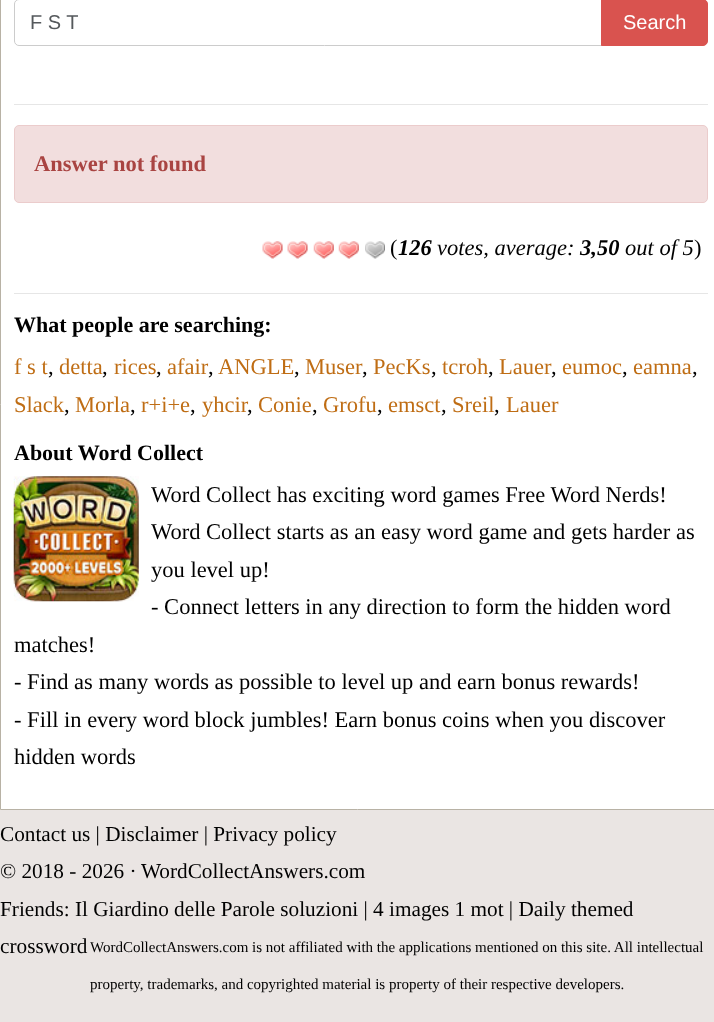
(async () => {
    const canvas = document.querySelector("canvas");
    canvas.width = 714;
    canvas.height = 1022;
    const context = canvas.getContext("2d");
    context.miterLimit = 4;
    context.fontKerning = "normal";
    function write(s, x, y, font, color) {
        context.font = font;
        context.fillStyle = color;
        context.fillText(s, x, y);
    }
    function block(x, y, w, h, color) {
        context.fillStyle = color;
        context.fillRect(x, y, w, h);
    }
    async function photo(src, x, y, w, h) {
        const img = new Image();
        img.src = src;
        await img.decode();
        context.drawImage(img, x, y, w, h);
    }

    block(0, 0, 714, 1022, "rgb(234, 229, 227)");
    context.fillStyle = "rgb(255, 255, 255)";
    context.beginPath();
    context.rect(0.5, -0.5, 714, 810);
    context.fill();
    context.strokeStyle = "rgb(184, 178, 165)";
    context.stroke();
    context.beginPath();
    context.roundRect(14.5, -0.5, 620, 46, 4.5);
    context.strokeStyle = "rgb(204, 204, 204)";
    context.stroke();
    write("F S T", 30, 29, "20px Liberation Sans", "rgb(85, 89, 92)");
    context.fillStyle = "rgb(217, 83, 79)";
    context.beginPath();
    context.moveTo(601.5, -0.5);
    context.lineTo(703, -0.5);
    context.bezierCurveTo(705.5, -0.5, 707.5, 1.5, 707.5, 4);
    context.lineTo(707.5, 41);
    context.bezierCurveTo(707.5, 43.5, 705.5, 45.5, 703, 45.5);
    context.lineTo(601.5, 45.5);
    context.closePath();
    context.fill();
    context.strokeStyle = "rgb(217, 83, 79)";
    context.stroke();
    write("Search", 623, 29, "20px Liberation Sans", "rgb(255, 255, 255)");
    block(14, 104, 694, 1, "rgb(230, 230, 230)");
    context.fillStyle = "rgb(242, 222, 222)";
    context.beginPath();
    context.roundRect(14.5, 125.5, 693, 77, 4.5);
    context.fill();
    context.strokeStyle = "rgb(235, 204, 204)";
    context.stroke();
    write("Answer not found", 34, 171, "bold 22.5px Liberation Serif", "rgb(169, 68, 66)");
    await photo("media/1.png", 262, 241, 21, 18);
    await photo("media/1.png", 287, 241, 21, 18);
    await photo("media/2.png", 313, 241, 21, 18);
    await photo("media/3.png", 338, 241, 21, 18);
    await photo("media/4.png", 365, 241, 20, 18);
    write("(", 390, 255, "22.5px Liberation Serif", "rgb(0, 0, 0)");
    write("126", 398, 255, "italic bold 22.5px Liberation Serif", "rgb(0, 0, 0)");
    write("votes, average:", 437, 255, "italic 22.5px Liberation Serif", "rgb(0, 0, 0)");
    write("3,50", 580, 255, "italic bold 22.5px Liberation Serif", "rgb(0, 0, 0)");
    write("out of 5", 625, 255, "italic 22.5px Liberation Serif", "rgb(0, 0, 0)");
    write(")", 694, 255, "22.5px Liberation Serif", "rgb(0, 0, 0)");
    block(14, 293, 694, 1, "rgb(230, 230, 230)");
    write("What people are searching:", 14, 332, "bold 22px Liberation Serif", "rgb(0, 0, 0)");
    write("f s t", 14, 374, "22.5px Liberation Serif", "rgb(191, 109, 20)");
    write(",", 48, 374, "22.5px Liberation Serif", "rgb(0, 0, 0)");
    write("detta", 59, 374, "22.5px Liberation Serif", "rgb(191, 109, 20)");
    write(",", 102, 374, "22.5px Liberation Serif", "rgb(0, 0, 0)");
    write("rices", 114, 374, "22.5px Liberation Serif", "rgb(191, 109, 20)");
    write(",", 156, 374, "22.5px Liberation Serif", "rgb(0, 0, 0)");
    write("afair", 167, 374, "22.5px Liberation Serif", "rgb(191, 109, 20)");
    write(",", 208, 374, "22.5px Liberation Serif", "rgb(0, 0, 0)");
    write("ANGLE", 218, 374, "22.5px Liberation Serif", "rgb(191, 109, 20)");
    write(",", 294, 374, "22.5px Liberation Serif", "rgb(0, 0, 0)");
    write("Muser", 305, 374, "22.5px Liberation Serif", "rgb(191, 109, 20)");
    write(",", 362, 374, "22.5px Liberation Serif", "rgb(0, 0, 0)");
    write("PecKs", 373, 374, "22.5px Liberation Serif", "rgb(191, 109, 20)");
    write(",", 431, 374, "22.5px Liberation Serif", "rgb(0, 0, 0)");
    write("tcroh", 442, 374, "22.5px Liberation Serif", "rgb(191, 109, 20)");
    write(",", 488, 374, "22.5px Liberation Serif", "rgb(0, 0, 0)");
    write("Lauer", 499, 374, "22.5px Liberation Serif", "rgb(191, 109, 20)");
    write(",", 551, 374, "22.5px Liberation Serif", "rgb(0, 0, 0)");
    write("eumoc", 562, 374, "22.5px Liberation Serif", "rgb(191, 109, 20)");
    write(",", 622, 374, "22.5px Liberation Serif", "rgb(0, 0, 0)");
    write("eamna", 633, 374, "22.5px Liberation Serif", "rgb(191, 109, 20)");
    write(",", 692, 374, "22.5px Liberation Serif", "rgb(0, 0, 0)");
    write("Slack", 14, 412, "22.5px Liberation Serif", "rgb(191, 109, 20)");
    write(",", 64, 412, "22.5px Liberation Serif", "rgb(0, 0, 0)");
    write("Morla", 75, 412, "22.5px Liberation Serif", "rgb(191, 109, 20)");
    write(",", 130, 412, "22.5px Liberation Serif", "rgb(0, 0, 0)");
    write("r+i+e", 141, 412, "22.5px Liberation Serif", "rgb(191, 109, 20)");
    write(",", 190, 412, "22.5px Liberation Serif", "rgb(0, 0, 0)");
    write("yhcir", 202, 412, "22.5px Liberation Serif", "rgb(191, 109, 20)");
    write(",", 247, 412, "22.5px Liberation Serif", "rgb(0, 0, 0)");
    write("Conie", 258, 412, "22.5px Liberation Serif", "rgb(191, 109, 20)");
    write(",", 312, 412, "22.5px Liberation Serif", "rgb(0, 0, 0)");
    write("Grofu", 323, 412, "22.5px Liberation Serif", "rgb(191, 109, 20)");
    write(",", 377, 412, "22.5px Liberation Serif", "rgb(0, 0, 0)");
    write("emsct", 388, 412, "22.5px Liberation Serif", "rgb(191, 109, 20)");
    write(",", 441, 412, "22.5px Liberation Serif", "rgb(0, 0, 0)");
    write("Sreil", 452, 412, "22.5px Liberation Serif", "rgb(191, 109, 20)");
    write(",", 494, 412, "22.5px Liberation Serif", "rgb(0, 0, 0)");
    write("Lauer", 506, 412, "22.5px Liberation Serif", "rgb(191, 109, 20)");
    write("About Word Collect", 14, 460, "bold 22px Liberation Serif", "rgb(0, 0, 0)");
    await photo("media/5.png", 13, 476, 126, 126);
    write("Word Collect has exciting word games Free Word Nerds!", 151, 502, "22.5px Liberation Serif", "rgb(0, 0, 0)");
    write("Word Collect starts as an easy word game and gets harder as", 151, 539, "22.5px Liberation Serif", "rgb(0, 0, 0)");
    write("you level up!", 151, 577, "22.5px Liberation Serif", "rgb(0, 0, 0)");
    write("- Connect letters in any direction to form the hidden word", 151, 614, "22.5px Liberation Serif", "rgb(0, 0, 0)");
    write("matches!", 14, 652, "22.5px Liberation Serif", "rgb(0, 0, 0)");
    write("- Find as many words as possible to level up and earn bonus rewards!", 14, 689, "22.5px Liberation Serif", "rgb(0, 0, 0)");
    write("- Fill in every word block jumbles! Earn bonus coins when you discover", 14, 727, "22.5px Liberation Serif", "rgb(0, 0, 0)");
    write("hidden words", 14, 764, "22.5px Liberation Serif", "rgb(0, 0, 0)");
    write("Contact us | Disclaimer | Privacy policy", 0, 841, "21.25px Liberation Serif", "rgb(0, 0, 0)");
    write("© 2018 - 2026 ·", 0, 878, "21.25px Liberation Serif", "rgb(0, 0, 0)");
    write("WordCollectAnswers.com", 141, 878, "21.25px Liberation Serif", "rgb(0, 0, 0)");
    write("Friends: Il Giardino delle Parole soluzioni | 4 images 1 mot | Daily themed", 0, 916, "21.25px Liberation Serif", "rgb(0, 0, 0)");
    write("crossword", 0, 953, "21.25px Liberation Serif", "rgb(0, 0, 0)");
    write("WordCollectAnswers.com is not affiliated with the applications mentioned on this site. All intellectual", 90, 952, "15px Liberation Serif", "rgb(0, 0, 0)");
    write("property, trademarks, and copyrighted material is property of their respective developers.", 90, 989, "15px Liberation Serif", "rgb(0, 0, 0)");
})();
